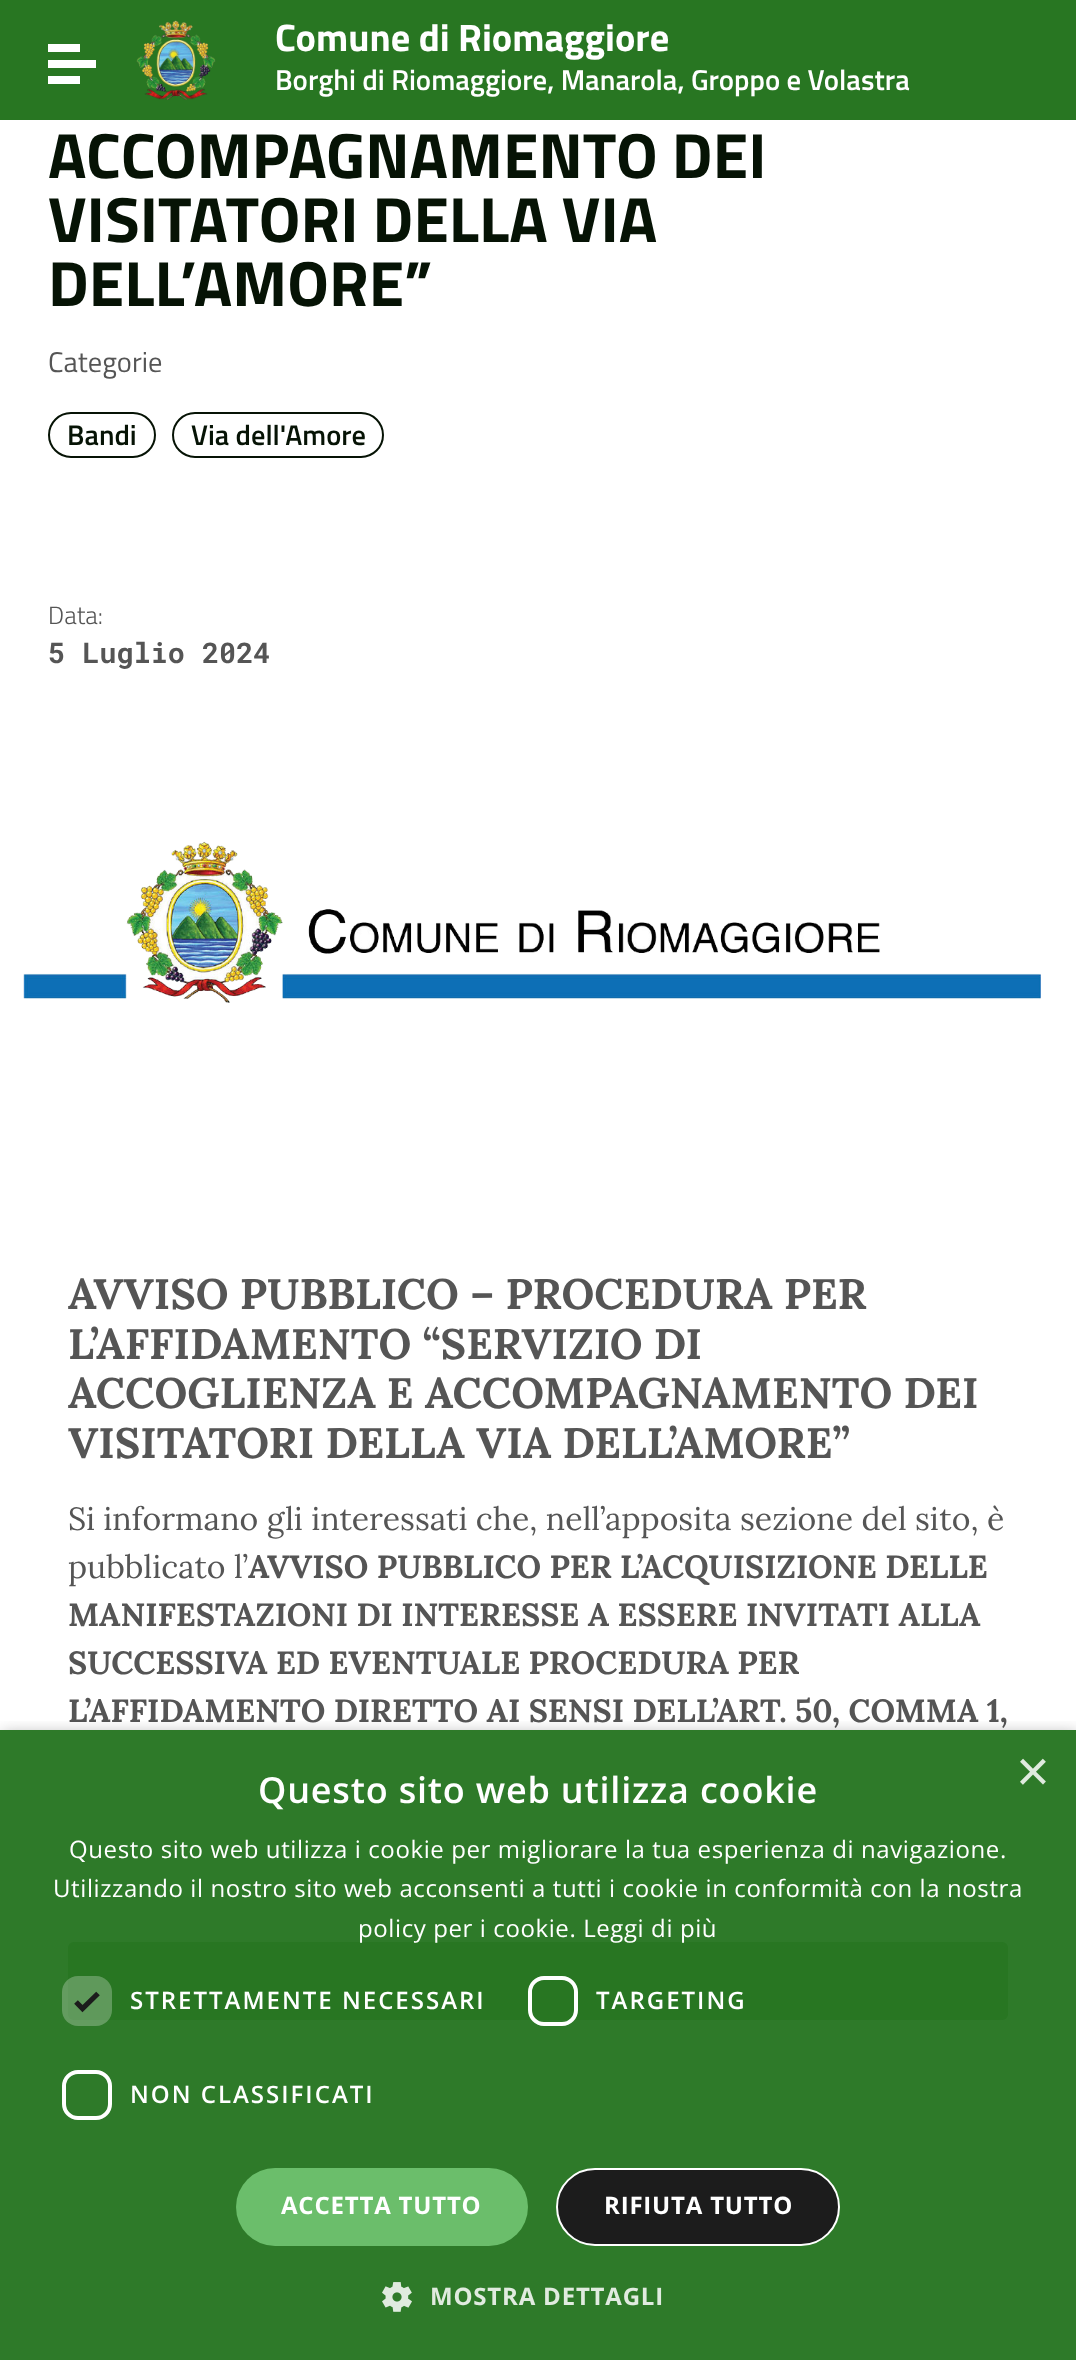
(async () => {
    const canvas = document.querySelector("canvas");
    canvas.width = 1076;
    canvas.height = 2360;
    const context = canvas.getContext("2d");
    context.miterLimit = 4;
    context.fontKerning = "normal";
    function write(s, x, y, font, color) {
        context.font = font;
        context.fillStyle = color;
        context.fillText(s, x, y);
    }
    function block(x, y, w, h, color) {
        context.fillStyle = color;
        context.fillRect(x, y, w, h);
    }
    function card(x, y, w, h, r, color) {
        context.fillStyle = color;
        context.beginPath();
        context.roundRect(x, y, w, h, r);
        context.fill();
    }
    async function photo(src, x, y, w, h) {
        const img = new Image();
        img.src = src;
        await img.decode();
        context.drawImage(img, x, y, w, h);
    }

    block(0, 0, 1076, 2360, "rgb(255, 255, 255)");
    block(0, 1730, 1076, 630, "rgb(46, 122, 41)");
    block(0, 0, 1076, 120, "rgb(40, 118, 34)");
    block(48, 44, 32, 8, "rgb(255, 255, 255)");
    block(48, 60, 48, 8, "rgb(255, 255, 255)");
    block(48, 76, 32, 8, "rgb(255, 255, 255)");
    await photo("media/1.png", 136, 20, 80, 80);
    write("Comune di Riomaggiore", 275, 51, "bold 38.4px Titillium Web", "rgb(255, 255, 255)");
    write("Borghi di Riomaggiore, Manarola, Groppo e Volastra", 275, 90, "600 28.8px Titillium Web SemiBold", "rgb(255, 255, 255)");
    write("ACCOMPAGNAMENTO DEI", 48, 178, "bold 64px Titillium Web", "rgb(6, 19, 5)");
    write("VISITATORI DELLA VIA", 48, 242, "bold 64px Titillium Web", "rgb(6, 19, 5)");
    write("DELL’AMORE”", 48, 306, "bold 64px Titillium Web", "rgb(6, 19, 5)");
    write("Categorie", 48, 372, "28.5px Titillium Web", "rgb(85, 85, 85)");
    context.beginPath();
    context.roundRect(49, 413, 106, 44, 22);
    context.strokeStyle = "rgb(6, 19, 5)";
    context.lineWidth = 2;
    context.stroke();
    write("Bandi", 67, 445, "600 28.5px Titillium Web SemiBold", "rgb(6, 19, 5)");
    context.beginPath();
    context.roundRect(173, 413, 210, 44, 22);
    context.stroke();
    write("Via dell'Amore", 191, 445, "600 28.5px Titillium Web SemiBold", "rgb(6, 19, 5)");
    write("Data:", 48, 624, "300 25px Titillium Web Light", "rgb(85, 85, 85)");
    write("5 Luglio 2024", 48, 663, "bold 28.5px Roboto Mono", "rgb(85, 85, 85)");
    await photo("media/2.png", 23, 841, 1018, 162);
    write("AVVISO PUBBLICO – PROCEDURA PER", 68, 1309, "bold 42.7px Lora", "rgb(85, 85, 85)");
    write("L’AFFIDAMENTO “SERVIZIO DI", 68, 1359, "bold 42.7px Lora", "rgb(85, 85, 85)");
    write("ACCOGLIENZA E ACCOMPAGNAMENTO DEI", 68, 1408, "bold 42.7px Lora", "rgb(85, 85, 85)");
    write("VISITATORI DELLA VIA DELL’AMORE”", 68, 1458, "bold 42.7px Lora", "rgb(85, 85, 85)");
    write("Si informano gli interessati che, nell’apposita sezione del sito, è", 68, 1530, "32px Lora", "rgb(85, 85, 85)");
    write("pubblicato l’", 68, 1578, "32px Lora", "rgb(85, 85, 85)");
    write("AVVISO PUBBLICO PER L’ACQUISIZIONE DELLE", 248, 1578, "bold 32px Lora", "rgb(85, 85, 85)");
    write("MANIFESTAZIONI DI INTERESSE A ESSERE INVITATI ALLA", 68, 1626, "bold 32px Lora", "rgb(85, 85, 85)");
    write("SUCCESSIVA ED EVENTUALE PROCEDURA PER", 68, 1674, "bold 32px Lora", "rgb(85, 85, 85)");
    write("L’AFFIDAMENTO DIRETTO AI SENSI DELL’ART. 50, COMMA 1,", 68, 1722, "bold 32px Lora", "rgb(85, 85, 85)");
    card(68, 1942, 940, 78, 6, "rgb(40, 118, 34)");
    context.save();
    context.beginPath();
    context.rect(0, 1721, 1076, 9);
    context.clip();
    context.fillStyle = "rgba(0, 0, 0, 0.35)";
    context.filter = "blur(8px)";
    context.beginPath();
    context.rect(2, 1734, 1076, 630);
    context.fill();
    context.filter = "none";
    context.restore();
    write("×", 1016, 1791, "58px Liberation Sans", "rgb(224, 235, 223)");
    context.letterSpacing = "0.8px";
    write("Questo sito web utilizza cookie", 258, 1803, "600 36px Open Sans", "rgb(255, 255, 255)");
    context.letterSpacing = "0.6px";
    write("Questo sito web utilizza i cookie per migliorare la tua esperienza di navigazione.", 69, 1858, "24px Open Sans", "rgb(255, 255, 255)");
    write("Utilizzando il nostro sito web acconsenti a tutti i cookie in conformità con la nostra", 53, 1897, "24px Open Sans", "rgb(255, 255, 255)");
    write("policy per i cookie. Leggi di più", 358, 1937, "24px Open Sans", "rgb(255, 255, 255)");
    card(62, 1976, 50, 50, 16, "rgba(255, 255, 255, 0.26)");
    context.beginPath();
    context.moveTo(76, 2002);
    context.lineTo(82.5, 2008.5);
    context.lineTo(98, 1993.5);
    context.strokeStyle = "rgb(28, 28, 28)";
    context.lineWidth = 5.2;
    context.stroke();
    context.letterSpacing = "2px";
    write("STRETTAMENTE NECESSARI", 130, 2009, "600 24px Open Sans", "rgb(255, 255, 255)");
    context.beginPath();
    context.roundRect(530, 1978, 46, 46, 14);
    context.strokeStyle = "rgb(255, 255, 255)";
    context.lineWidth = 4;
    context.stroke();
    write("TARGETING", 596, 2009, "600 24px Open Sans", "rgb(255, 255, 255)");
    context.beginPath();
    context.roundRect(64, 2072, 46, 46, 14);
    context.stroke();
    write("NON CLASSIFICATI", 130, 2103, "600 24px Open Sans", "rgb(255, 255, 255)");
    card(236, 2168, 292, 78, 39, "rgb(107, 190, 107)");
    context.letterSpacing = "0.8px";
    write("ACCETTA TUTTO", 281, 2214, "bold 24px Open Sans", "rgb(255, 255, 255)");
    context.fillStyle = "rgb(28, 28, 28)";
    context.beginPath();
    context.roundRect(557, 2169, 282, 76, 38);
    context.fill();
    context.lineWidth = 2;
    context.stroke();
    write("RIFIUTA TUTTO", 604, 2214, "bold 24px Open Sans", "rgb(255, 255, 255)");
    await photo("media/3.png", 382, 2282, 30, 30);
    write("MOSTRA DETTAGLI", 430, 2305, "bold 24px Open Sans", "rgb(224, 235, 223)");
})();
